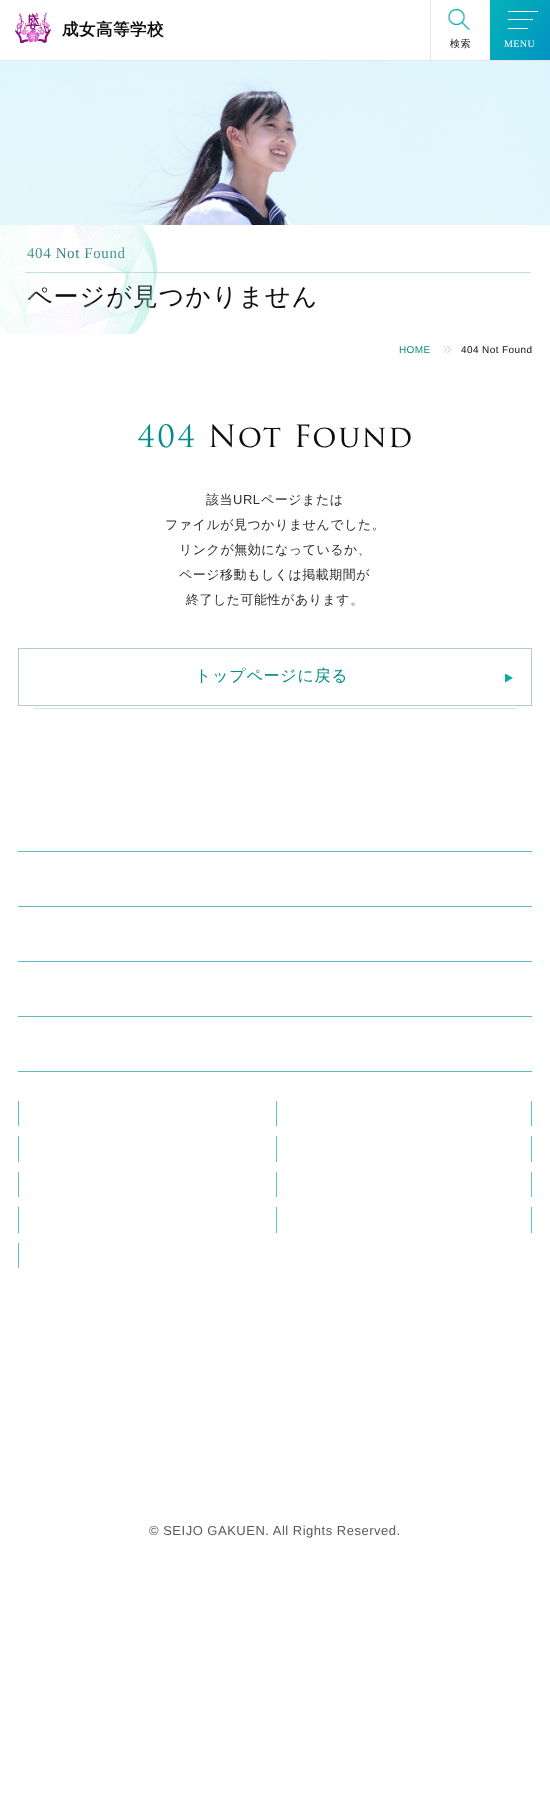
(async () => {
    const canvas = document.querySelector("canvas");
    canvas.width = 550;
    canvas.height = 1818;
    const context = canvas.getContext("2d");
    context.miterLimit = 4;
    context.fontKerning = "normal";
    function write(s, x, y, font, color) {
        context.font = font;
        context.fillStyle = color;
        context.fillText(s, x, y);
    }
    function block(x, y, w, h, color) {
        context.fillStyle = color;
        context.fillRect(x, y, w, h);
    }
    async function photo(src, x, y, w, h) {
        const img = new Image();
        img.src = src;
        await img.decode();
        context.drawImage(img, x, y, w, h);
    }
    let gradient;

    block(0, 0, 550, 1818, "rgb(255, 255, 255)");
    block(0, 60, 550, 1, "rgb(229, 229, 229)");
    await photo("media/1.png", 15, 12, 36, 31);
    context.letterSpacing = "0.5px";
    write("成女高等学校", 62, 35, "bold 16.5px WenQuanYi Zen Hei", "rgb(13, 13, 13)");
    block(430, 0, 1, 60, "rgb(229, 229, 229)");
    await photo("media/2.png", 448, 9, 22, 21);
    context.letterSpacing = "0.4px";
    write("検索", 450, 47, "500 10px WenQuanYi Zen Hei", "rgb(13, 13, 13)");
    gradient = context.createLinearGradient(496, -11, 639, 71);
    gradient.addColorStop(0, "rgb(4, 180, 184)");
    gradient.addColorStop(0.5, "rgb(3, 147, 194)");
    gradient.addColorStop(0.51, "rgb(5, 190, 172)");
    gradient.addColorStop(1, "rgb(5, 157, 182)");
    context.fillStyle = gradient;
    context.fillRect(490, 0, 60, 60);
    block(508, 11, 30, 1, "rgb(255, 255, 255)");
    block(508, 19, 25, 1, "rgb(255, 255, 255)");
    block(508, 28, 20, 1, "rgb(255, 255, 255)");
    write("MENU", 504, 47, "10px Liberation Serif", "rgb(255, 255, 255)");
    await photo("media/3.png", 0, 61, 550, 164);
    block(25, 272, 506, 1, "rgb(193, 223, 221)");
    context.letterSpacing = "0.6px";
    write("404 Not Found", 27, 258, "15px Liberation Serif", "rgb(58, 133, 130)");
    context.letterSpacing = "1px";
    write("ページが見つかりません", 27, 305, "500 25px WenQuanYi Zen Hei", "rgb(13, 13, 13)");
    await photo("media/4.png", 0, 225, 157, 109);
    context.letterSpacing = "0.4px";
    write("HOME", 399, 353, "10px Liberation Sans", "rgb(2, 141, 136)");
    await photo("media/5.png", 443, 346, 8, 7);
    write("404 Not Found", 461, 353, "10px Liberation Sans", "rgb(13, 13, 13)");
    context.letterSpacing = "1.25px";
    write("404", 137, 447, "30px 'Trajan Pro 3'", "rgb(2, 141, 136)");
    write("Not Found", 208, 447, "30px 'Trajan Pro 3'", "rgb(13, 13, 13)");
    context.letterSpacing = "0.5px";
    write("該当", 206, 504, "500 13px WenQuanYi Zen Hei", "rgb(51, 43, 43)");
    write("URL", 233, 504, "13px Liberation Sans", "rgb(51, 43, 43)");
    write("ページまたは", 261, 504, "500 13px WenQuanYi Zen Hei", "rgb(51, 43, 43)");
    write("ファイルが見つかりませんでした。", 165, 529, "500 13px WenQuanYi Zen Hei", "rgb(51, 43, 43)");
    write("リンクが無効になっているか、", 179, 554, "500 13px WenQuanYi Zen Hei", "rgb(51, 43, 43)");
    write("ページ移動もしくは掲載期間が", 179, 579, "500 13px WenQuanYi Zen Hei", "rgb(51, 43, 43)");
    write("終了した可能性があります。", 186, 604, "500 13px WenQuanYi Zen Hei", "rgb(51, 43, 43)");
    context.strokeStyle = "rgb(175, 205, 204)";
    context.strokeRect(18.5, 648.5, 513, 57);
    context.letterSpacing = "0.75px";
    write("トップページに戻る", 195, 681, "500 16px WenQuanYi Zen Hei", "rgb(2, 141, 136)");
    context.fillStyle = "rgb(7, 171, 165)";
    context.beginPath();
    context.moveTo(505, 674);
    context.lineTo(505, 682.5);
    context.lineTo(513, 678);
    context.lineTo(506, 674);
    context.closePath();
    context.fill();
    block(34, 708, 482, 1, "rgb(215, 230, 229)");
    block(18, 851, 514, 1, "rgb(90, 189, 192)");
    block(18, 906, 514, 1, "rgb(90, 189, 192)");
    block(18, 961, 514, 1, "rgb(90, 189, 192)");
    block(18, 1016, 514, 1, "rgb(90, 189, 192)");
    block(18, 1071, 514, 1, "rgb(90, 189, 192)");
    block(18, 1101, 1, 25, "rgb(90, 194, 194)");
    block(531, 1101, 1, 25, "rgb(90, 194, 194)");
    block(276, 1101, 1, 25, "rgb(90, 194, 194)");
    block(18, 1136, 1, 26, "rgb(90, 194, 194)");
    block(531, 1136, 1, 26, "rgb(90, 194, 194)");
    block(276, 1136, 1, 26, "rgb(90, 194, 194)");
    block(18, 1172, 1, 25, "rgb(90, 194, 194)");
    block(531, 1172, 1, 25, "rgb(90, 194, 194)");
    block(276, 1172, 1, 25, "rgb(90, 194, 194)");
    block(18, 1207, 1, 26, "rgb(90, 194, 194)");
    block(531, 1207, 1, 26, "rgb(90, 194, 194)");
    block(276, 1207, 1, 26, "rgb(90, 194, 194)");
    block(18, 1243, 1, 25, "rgb(90, 194, 194)");
    context.letterSpacing = "0.5px";
    write("© SEIJO GAKUEN. All Rights Reserved.", 149, 1535, "13px Liberation Sans", "rgb(89, 89, 89)");
})();
